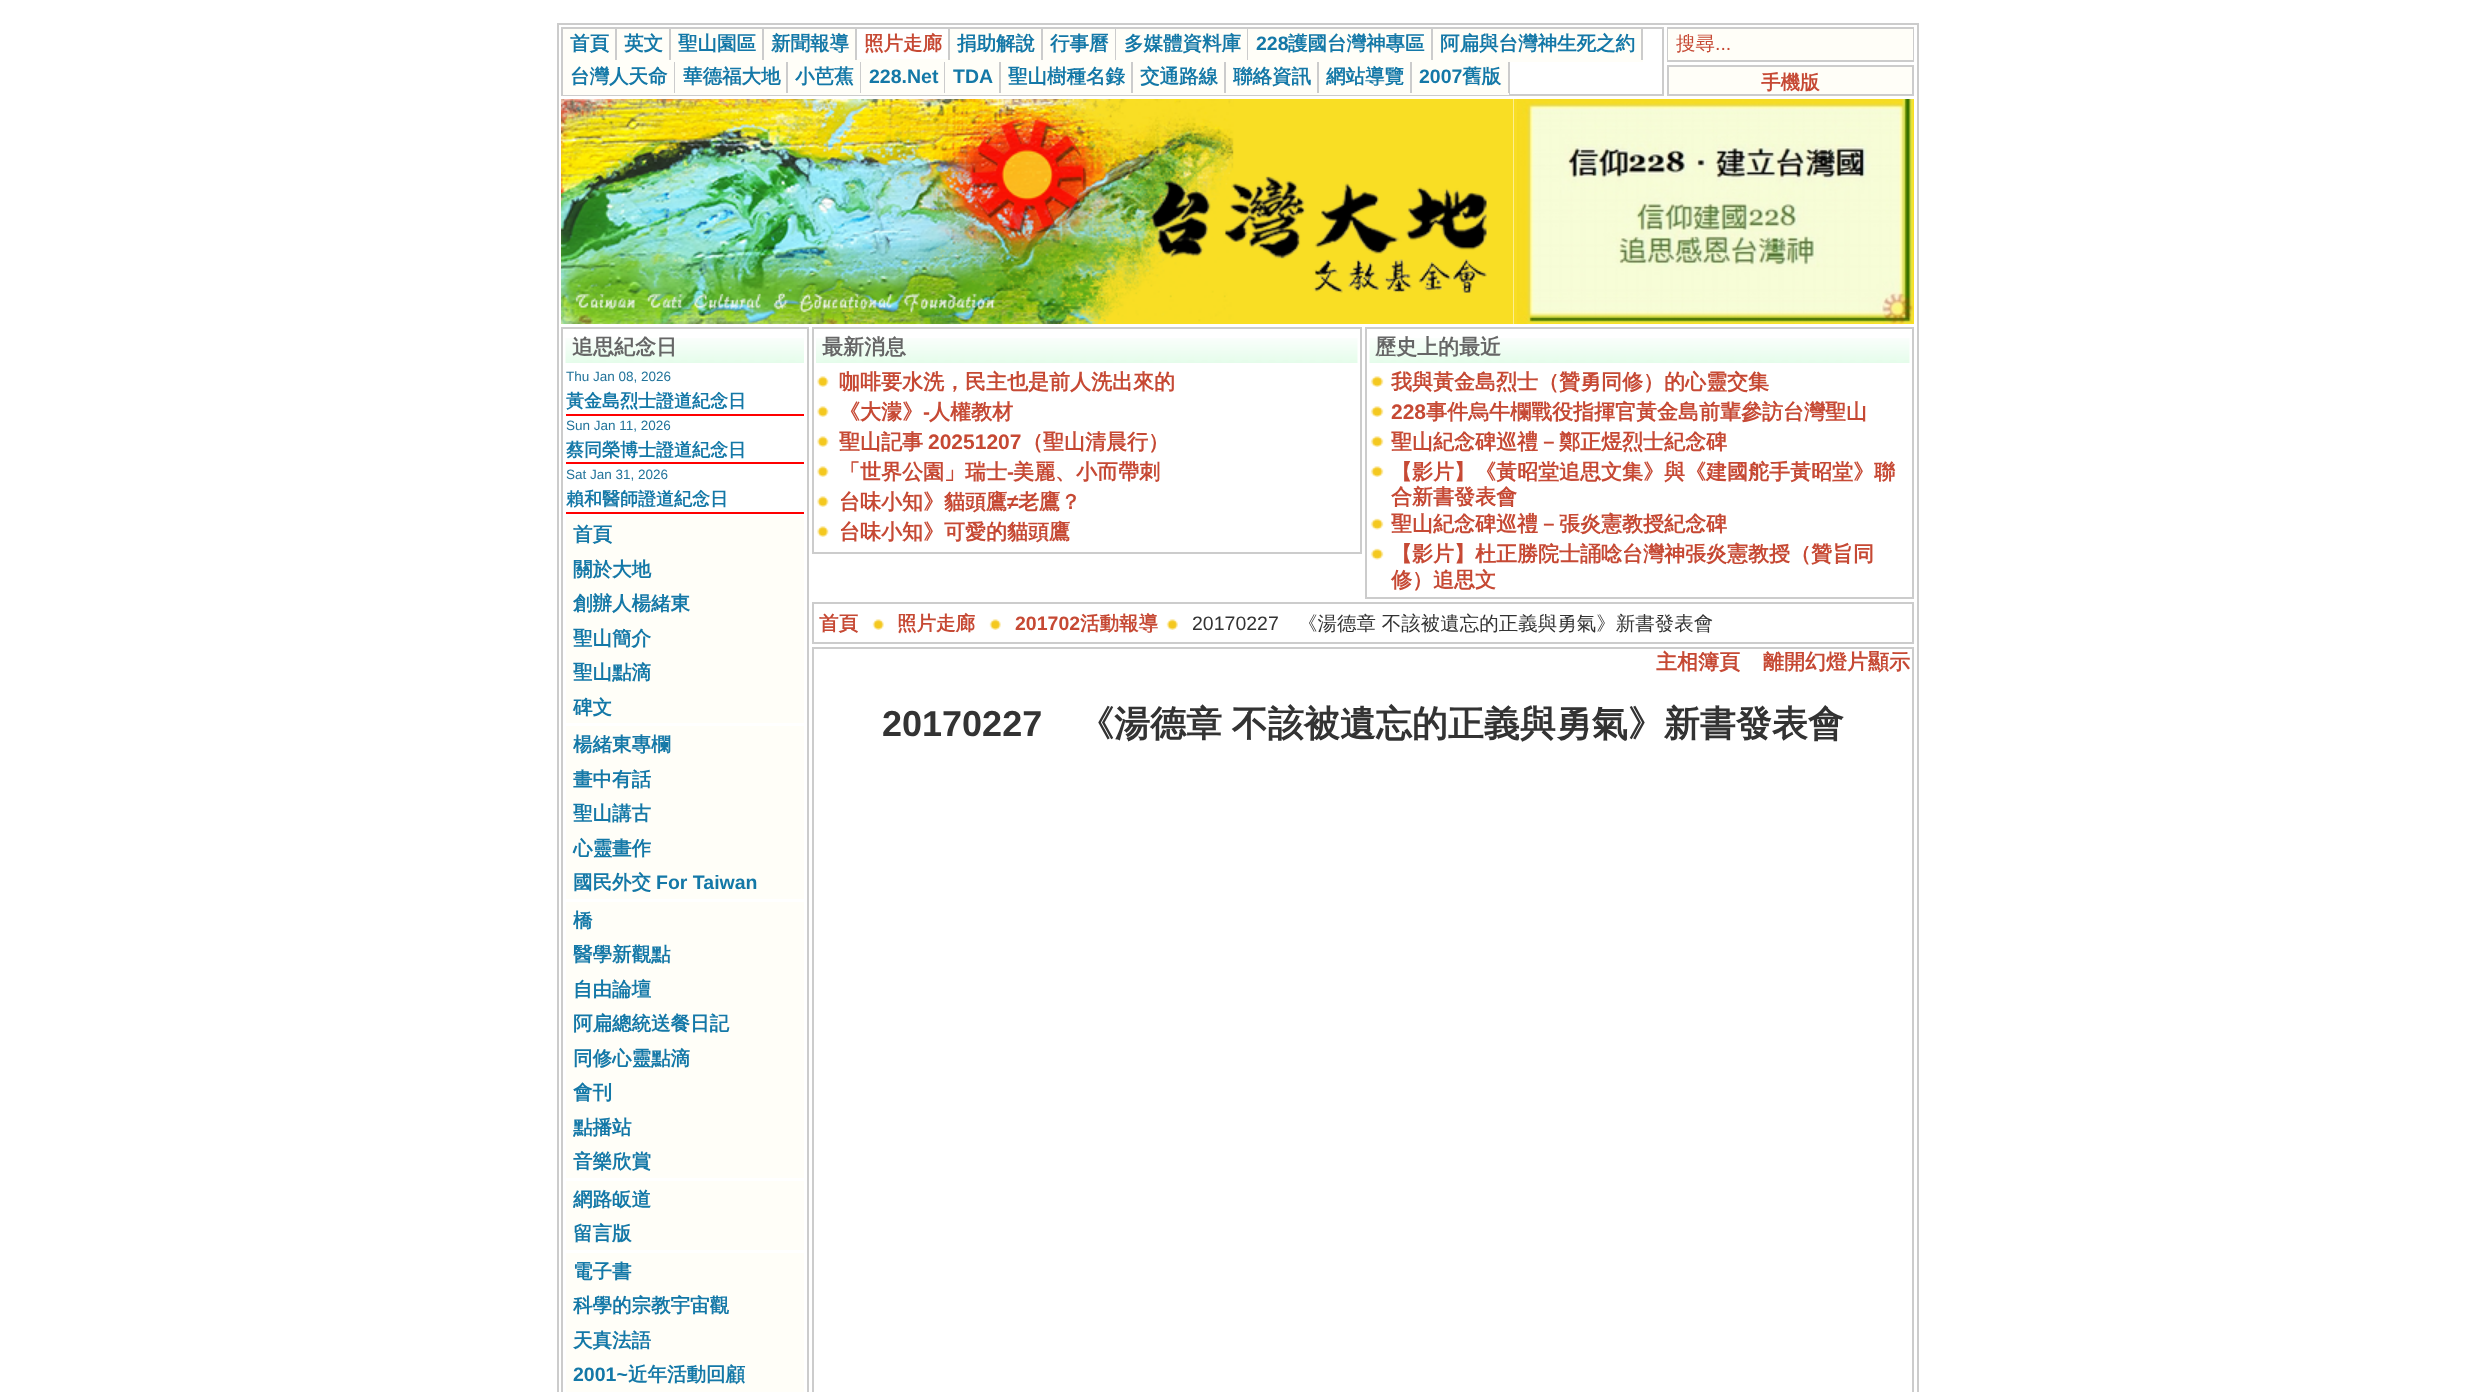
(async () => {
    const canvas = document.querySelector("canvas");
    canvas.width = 2474;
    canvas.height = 1392;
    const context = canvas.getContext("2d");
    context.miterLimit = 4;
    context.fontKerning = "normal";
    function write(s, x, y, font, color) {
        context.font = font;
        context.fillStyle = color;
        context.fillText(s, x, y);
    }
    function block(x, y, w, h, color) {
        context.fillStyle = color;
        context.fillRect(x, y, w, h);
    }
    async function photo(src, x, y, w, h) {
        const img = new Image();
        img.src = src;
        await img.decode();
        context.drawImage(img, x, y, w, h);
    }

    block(0, 0, 2474, 1392, "rgb(255, 255, 255)");
    context.strokeStyle = "rgb(204, 204, 204)";
    context.lineWidth = 2;
    context.strokeRect(558, 24, 1360, 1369);
    context.strokeRect(562, 28, 1101, 67);
    block(615, 29, 2, 33, "rgb(204, 204, 204)");
    block(563, 60, 54, 2, "rgb(255, 254, 248)");
    block(563, 29, 52, 31, "rgb(255, 254, 248)");
    write("首頁", 570, 50, "bold 19.5px WenQuanYi Zen Hei", "rgb(20, 120, 167)");
    block(669, 29, 2, 33, "rgb(204, 204, 204)");
    block(617, 60, 54, 2, "rgb(255, 254, 248)");
    block(617, 29, 52, 31, "rgb(255, 254, 248)");
    write("英文", 624, 50, "bold 19.5px WenQuanYi Zen Hei", "rgb(20, 120, 167)");
    block(762, 29, 2, 33, "rgb(204, 204, 204)");
    block(671, 60, 93, 2, "rgb(255, 254, 248)");
    block(671, 29, 91, 31, "rgb(255, 254, 248)");
    write("聖山園區", 678, 50, "bold 19.5px WenQuanYi Zen Hei", "rgb(20, 120, 167)");
    block(855, 29, 2, 33, "rgb(204, 204, 204)");
    block(764, 60, 93, 2, "rgb(255, 254, 248)");
    block(764, 29, 91, 31, "rgb(255, 254, 248)");
    write("新聞報導", 771, 50, "bold 19.5px WenQuanYi Zen Hei", "rgb(20, 120, 167)");
    block(948, 29, 2, 33, "rgb(204, 204, 204)");
    block(857, 60, 93, 2, "rgb(255, 254, 248)");
    block(857, 59, 91, 1, "rgb(255, 254, 248)");
    write("照片走廊", 864, 50, "bold 19.5px WenQuanYi Zen Hei", "rgb(198, 73, 52)");
    block(1041, 29, 2, 33, "rgb(204, 204, 204)");
    block(950, 60, 93, 2, "rgb(255, 254, 248)");
    block(950, 29, 91, 31, "rgb(255, 254, 248)");
    write("捐助解說", 957, 50, "bold 19.5px WenQuanYi Zen Hei", "rgb(20, 120, 167)");
    block(1115, 29, 1, 33, "rgb(204, 204, 204)");
    block(1043, 60, 73, 2, "rgb(255, 254, 248)");
    block(1043, 29, 72, 31, "rgb(255, 254, 248)");
    write("行事曆", 1050, 50, "bold 19.5px WenQuanYi Zen Hei", "rgb(20, 120, 167)");
    block(1247, 29, 1, 33, "rgb(204, 204, 204)");
    block(1116, 60, 132, 2, "rgb(255, 254, 248)");
    block(1116, 29, 131, 31, "rgb(255, 254, 248)");
    write("多媒體資料庫", 1124, 50, "bold 19.5px WenQuanYi Zen Hei", "rgb(20, 120, 167)");
    block(1431, 29, 2, 33, "rgb(204, 204, 204)");
    block(1248, 60, 185, 2, "rgb(255, 254, 248)");
    block(1248, 29, 183, 31, "rgb(255, 254, 248)");
    write("228", 1256, 50, "bold 19.5px Liberation Sans", "rgb(20, 120, 167)");
    write("護國台灣神專區", 1288, 50, "bold 19.5px WenQuanYi Zen Hei", "rgb(20, 120, 167)");
    block(1641, 29, 2, 33, "rgb(204, 204, 204)");
    block(1433, 60, 210, 2, "rgb(255, 254, 248)");
    block(1433, 29, 208, 31, "rgb(255, 254, 248)");
    write("阿扁與台灣神生死之約", 1440, 50, "bold 19.5px WenQuanYi Zen Hei", "rgb(20, 120, 167)");
    block(674, 62, 1, 33, "rgb(204, 204, 204)");
    block(563, 93, 112, 2, "rgb(255, 254, 248)");
    block(563, 62, 111, 31, "rgb(255, 254, 248)");
    write("台灣人天命", 570, 83, "bold 19.5px WenQuanYi Zen Hei", "rgb(20, 120, 167)");
    block(786, 62, 2, 33, "rgb(204, 204, 204)");
    block(675, 93, 113, 2, "rgb(255, 254, 248)");
    block(675, 62, 111, 31, "rgb(255, 254, 248)");
    write("華德福大地", 683, 83, "bold 19.5px WenQuanYi Zen Hei", "rgb(20, 120, 167)");
    block(860, 62, 1, 33, "rgb(204, 204, 204)");
    block(788, 93, 73, 2, "rgb(255, 254, 248)");
    block(788, 62, 72, 31, "rgb(255, 254, 248)");
    write("小芭蕉", 795, 83, "bold 19.5px WenQuanYi Zen Hei", "rgb(20, 120, 167)");
    block(944, 62, 1, 33, "rgb(204, 204, 204)");
    block(861, 93, 84, 2, "rgb(255, 254, 248)");
    block(861, 62, 83, 31, "rgb(255, 254, 248)");
    write("228.Net", 869, 83, "bold 19.5px Liberation Sans", "rgb(20, 120, 167)");
    block(999, 62, 2, 33, "rgb(204, 204, 204)");
    block(945, 93, 56, 2, "rgb(255, 254, 248)");
    block(945, 62, 54, 31, "rgb(255, 254, 248)");
    write("TDA", 953, 83, "bold 19.5px Liberation Sans", "rgb(20, 120, 167)");
    block(1131, 62, 2, 33, "rgb(204, 204, 204)");
    block(1001, 93, 132, 2, "rgb(255, 254, 248)");
    block(1001, 62, 130, 31, "rgb(255, 254, 248)");
    write("聖山樹種名錄", 1008, 83, "bold 19.5px WenQuanYi Zen Hei", "rgb(20, 120, 167)");
    block(1224, 62, 2, 33, "rgb(204, 204, 204)");
    block(1133, 93, 93, 2, "rgb(255, 254, 248)");
    block(1133, 62, 91, 31, "rgb(255, 254, 248)");
    write("交通路線", 1140, 83, "bold 19.5px WenQuanYi Zen Hei", "rgb(20, 120, 167)");
    block(1317, 62, 2, 33, "rgb(204, 204, 204)");
    block(1226, 93, 93, 2, "rgb(255, 254, 248)");
    block(1226, 62, 91, 31, "rgb(255, 254, 248)");
    write("聯絡資訊", 1233, 83, "bold 19.5px WenQuanYi Zen Hei", "rgb(20, 120, 167)");
    block(1410, 62, 2, 33, "rgb(204, 204, 204)");
    block(1319, 93, 93, 2, "rgb(255, 254, 248)");
    block(1319, 62, 91, 31, "rgb(255, 254, 248)");
    write("網站導覽", 1326, 83, "bold 19.5px WenQuanYi Zen Hei", "rgb(20, 120, 167)");
    block(1508, 62, 2, 33, "rgb(204, 204, 204)");
    block(1412, 93, 97, 2, "rgb(255, 254, 248)");
    block(1412, 62, 96, 31, "rgb(255, 254, 248)");
    write("2007", 1419, 83, "bold 19.5px Liberation Sans", "rgb(20, 120, 167)");
    write("舊版", 1462, 83, "bold 19.5px WenQuanYi Zen Hei", "rgb(20, 120, 167)");
    context.strokeRect(1668, 28, 245, 33);
    block(1668, 29, 245, 31, "rgb(255, 254, 248)");
    write("搜尋", 1676, 50, "500 19.5px WenQuanYi Zen Hei", "rgb(198, 73, 52)");
    write("...", 1715, 50, "19.5px Liberation Sans", "rgb(198, 73, 52)");
    context.fillStyle = "rgb(255, 254, 248)";
    context.beginPath();
    context.rect(1668, 66, 245, 29);
    context.fill();
    context.stroke();
    write("手機版", 1761, 89, "bold 19.5px WenQuanYi Zen Hei", "rgb(198, 73, 52)");
    await photo("media/1.png", 561, 99, 953, 225);
    block(1514, 99, 3, 225, "rgb(249, 222, 36)");
    block(1912, 99, 2, 225, "rgb(249, 222, 36)");
    await photo("media/2.png", 1517, 99, 396, 225);
    context.strokeRect(562, 328, 246, 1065);
    await photo("media/3.png", 565, 338, 239, 25);
    write("追思紀念日", 572, 354, "bold 21px WenQuanYi Zen Hei", "rgb(102, 102, 102)");
    block(566, 414, 238, 2, "rgb(255, 0, 0)");
    write("Thu Jan 08, 2026", 566, 381, "13.5px Liberation Sans", "rgb(33, 115, 154)");
    write("黃金島烈士證道紀念日", 566, 407, "bold 18px WenQuanYi Zen Hei", "rgb(20, 120, 167)");
    block(566, 462, 238, 2, "rgb(255, 0, 0)");
    write("Sun Jan 11, 2026", 566, 430, "13.5px Liberation Sans", "rgb(33, 115, 154)");
    write("蔡同榮博士證道紀念日", 566, 456, "bold 18px WenQuanYi Zen Hei", "rgb(20, 120, 167)");
    block(566, 512, 238, 2, "rgb(255, 0, 0)");
    write("Sat Jan 31, 2026", 566, 479, "13.5px Liberation Sans", "rgb(33, 115, 154)");
    write("賴和醫師證道紀念日", 566, 505, "bold 18px WenQuanYi Zen Hei", "rgb(20, 120, 167)");
    block(566, 516, 238, 207, "rgb(255, 254, 248)");
    write("首頁", 573, 541, "bold 19.5px WenQuanYi Zen Hei", "rgb(20, 120, 167)");
    write("關於大地", 573, 576, "bold 19.5px WenQuanYi Zen Hei", "rgb(20, 120, 167)");
    write("創辦人楊緒東", 573, 610, "bold 19.5px WenQuanYi Zen Hei", "rgb(20, 120, 167)");
    write("聖山簡介", 573, 645, "bold 19.5px WenQuanYi Zen Hei", "rgb(20, 120, 167)");
    write("聖山點滴", 573, 679, "bold 19.5px WenQuanYi Zen Hei", "rgb(20, 120, 167)");
    write("碑文", 573, 714, "bold 19.5px WenQuanYi Zen Hei", "rgb(20, 120, 167)");
    block(566, 726, 238, 173, "rgb(255, 254, 248)");
    write("楊緒東專欄", 573, 751, "bold 19.5px WenQuanYi Zen Hei", "rgb(20, 120, 167)");
    write("畫中有話", 573, 786, "bold 19.5px WenQuanYi Zen Hei", "rgb(20, 120, 167)");
    write("聖山講古", 573, 820, "bold 19.5px WenQuanYi Zen Hei", "rgb(20, 120, 167)");
    write("心靈畫作", 573, 855, "bold 19.5px WenQuanYi Zen Hei", "rgb(20, 120, 167)");
    write("國民外交", 573, 889, "bold 19.5px WenQuanYi Zen Hei", "rgb(20, 120, 167)");
    write("For Taiwan", 656, 889, "bold 19.5px Liberation Sans", "rgb(20, 120, 167)");
    block(566, 902, 238, 276, "rgb(255, 254, 248)");
    write("橋", 573, 927, "bold 19.5px WenQuanYi Zen Hei", "rgb(20, 120, 167)");
    write("醫學新觀點", 573, 961, "bold 19.5px WenQuanYi Zen Hei", "rgb(20, 120, 167)");
    write("自由論壇", 573, 996, "bold 19.5px WenQuanYi Zen Hei", "rgb(20, 120, 167)");
    write("阿扁總統送餐日記", 573, 1030, "bold 19.5px WenQuanYi Zen Hei", "rgb(20, 120, 167)");
    write("同修心靈點滴", 573, 1065, "bold 19.5px WenQuanYi Zen Hei", "rgb(20, 120, 167)");
    write("會刊", 573, 1099, "bold 19.5px WenQuanYi Zen Hei", "rgb(20, 120, 167)");
    write("點播站", 573, 1134, "bold 19.5px WenQuanYi Zen Hei", "rgb(20, 120, 167)");
    write("音樂欣賞", 573, 1168, "bold 19.5px WenQuanYi Zen Hei", "rgb(20, 120, 167)");
    block(566, 1181, 238, 69, "rgb(255, 254, 248)");
    write("網路皈道", 573, 1206, "bold 19.5px WenQuanYi Zen Hei", "rgb(20, 120, 167)");
    write("留言版", 573, 1240, "bold 19.5px WenQuanYi Zen Hei", "rgb(20, 120, 167)");
    block(566, 1253, 238, 139, "rgb(255, 254, 248)");
    write("電子書", 573, 1278, "bold 19.5px WenQuanYi Zen Hei", "rgb(20, 120, 167)");
    write("科學的宗教宇宙觀", 573, 1312, "bold 19.5px WenQuanYi Zen Hei", "rgb(20, 120, 167)");
    write("天真法語", 573, 1347, "bold 19.5px WenQuanYi Zen Hei", "rgb(20, 120, 167)");
    write("2001~", 573, 1381, "bold 19.5px Liberation Sans", "rgb(20, 120, 167)");
    write("近年活動回顧", 628, 1381, "bold 19.5px WenQuanYi Zen Hei", "rgb(20, 120, 167)");
    context.strokeRect(813, 328, 548, 225);
    await photo("media/4.png", 816, 338, 542, 25);
    write("最新消息", 822, 354, "bold 21px WenQuanYi Zen Hei", "rgb(102, 102, 102)");
    await photo("media/5.png", 817, 376, 12, 11);
    write("咖啡要水洗，民主也是前人洗出來的", 839, 389, "bold 21px WenQuanYi Zen Hei", "rgb(198, 73, 52)");
    await photo("media/5.png", 817, 406, 12, 11);
    write("《大濛》", 839, 419, "bold 21px WenQuanYi Zen Hei", "rgb(198, 73, 52)");
    write("-", 923, 419, "bold 21px Liberation Sans", "rgb(198, 73, 52)");
    write("人權教材", 929, 419, "bold 21px WenQuanYi Zen Hei", "rgb(198, 73, 52)");
    await photo("media/5.png", 817, 436, 12, 11);
    write("聖山記事", 839, 449, "bold 21px WenQuanYi Zen Hei", "rgb(198, 73, 52)");
    write("20251207", 928, 449, "bold 21px Liberation Sans", "rgb(198, 73, 52)");
    write("（聖山清晨行）", 1022, 449, "bold 21px WenQuanYi Zen Hei", "rgb(198, 73, 52)");
    await photo("media/5.png", 817, 466, 12, 11);
    write("「世界公園」瑞士", 839, 479, "bold 21px WenQuanYi Zen Hei", "rgb(198, 73, 52)");
    write("-", 1007, 479, "bold 21px Liberation Sans", "rgb(198, 73, 52)");
    write("美麗、小而帶刺", 1013, 479, "bold 21px WenQuanYi Zen Hei", "rgb(198, 73, 52)");
    await photo("media/5.png", 817, 496, 12, 11);
    write("台味小知》貓頭鷹", 839, 509, "bold 21px WenQuanYi Zen Hei", "rgb(198, 73, 52)");
    write("≠", 1007, 509, "bold 21px Liberation Sans", "rgb(198, 73, 52)");
    write("老鷹？", 1018, 509, "bold 21px WenQuanYi Zen Hei", "rgb(198, 73, 52)");
    await photo("media/5.png", 817, 526, 12, 11);
    write("台味小知》可愛的貓頭鷹", 839, 539, "bold 21px WenQuanYi Zen Hei", "rgb(198, 73, 52)");
    context.strokeRect(1366, 328, 547, 270);
    await photo("media/6.png", 1369, 338, 541, 25);
    write("歷史上的最近", 1375, 354, "bold 21px WenQuanYi Zen Hei", "rgb(102, 102, 102)");
    await photo("media/7.png", 1370, 376, 14, 11);
    write("我與黃金島烈士（贊勇同修）的心靈交集", 1391, 389, "bold 21px WenQuanYi Zen Hei", "rgb(198, 73, 52)");
    await photo("media/7.png", 1370, 406, 14, 11);
    write("228", 1391, 419, "bold 21px Liberation Sans", "rgb(198, 73, 52)");
    write("事件烏牛欄戰役指揮官黃金島前輩參訪台灣聖山", 1426, 419, "bold 21px WenQuanYi Zen Hei", "rgb(198, 73, 52)");
    await photo("media/7.png", 1370, 436, 14, 11);
    write("聖山紀念碑巡禮－鄭正煜烈士紀念碑", 1391, 449, "bold 21px WenQuanYi Zen Hei", "rgb(198, 73, 52)");
    await photo("media/7.png", 1370, 466, 14, 11);
    write("【影片】《黃昭堂追思文集》與《建國舵手黃昭堂》聯", 1391, 479, "bold 21px WenQuanYi Zen Hei", "rgb(198, 73, 52)");
    write("合新書發表會", 1391, 504, "bold 21px WenQuanYi Zen Hei", "rgb(198, 73, 52)");
    await photo("media/8.png", 1370, 518, 14, 12);
    write("聖山紀念碑巡禮－張炎憲教授紀念碑", 1391, 531, "bold 21px WenQuanYi Zen Hei", "rgb(198, 73, 52)");
    await photo("media/8.png", 1370, 548, 14, 12);
    write("【影片】杜正勝院士誦唸台灣神張炎憲教授（贊旨同", 1391, 561, "bold 21px WenQuanYi Zen Hei", "rgb(198, 73, 52)");
    write("修）追思文", 1391, 587, "bold 21px WenQuanYi Zen Hei", "rgb(198, 73, 52)");
    context.strokeRect(813, 603, 1100, 40);
    write("首頁", 819, 630, "bold 19.5px WenQuanYi Zen Hei", "rgb(198, 73, 52)");
    await photo("media/9.png", 872, 619, 12, 11);
    write("照片走廊", 897, 630, "bold 19.5px WenQuanYi Zen Hei", "rgb(198, 73, 52)");
    await photo("media/9.png", 989, 619, 12, 11);
    write("201702", 1015, 630, "bold 19.5px Liberation Sans", "rgb(198, 73, 52)");
    write("活動報導", 1080, 630, "bold 19.5px WenQuanYi Zen Hei", "rgb(198, 73, 52)");
    await photo("media/10.png", 1166, 619, 12, 11);
    write("20170227", 1192, 630, "19.5px Liberation Sans", "rgb(51, 51, 51)");
    write("《湯德章 不該被遺忘的正義與勇氣》新書發表會", 1298, 630, "500 19.5px WenQuanYi Zen Hei", "rgb(51, 51, 51)");
    context.strokeRect(813, 648, 1100, 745);
    write("主相簿頁", 1656, 669, "bold 21px WenQuanYi Zen Hei", "rgb(198, 73, 52)");
    write("離開幻燈片顯示", 1763, 669, "bold 21px WenQuanYi Zen Hei", "rgb(198, 73, 52)");
    write("20170227", 882, 736, "bold 36px Liberation Sans", "rgb(51, 51, 51)");
    context.wordSpacing = "-1px";
    write("《湯德章 不該被遺忘的正義與勇氣》新書發表會", 1078, 736, "bold 36px WenQuanYi Zen Hei", "rgb(51, 51, 51)");
})();
